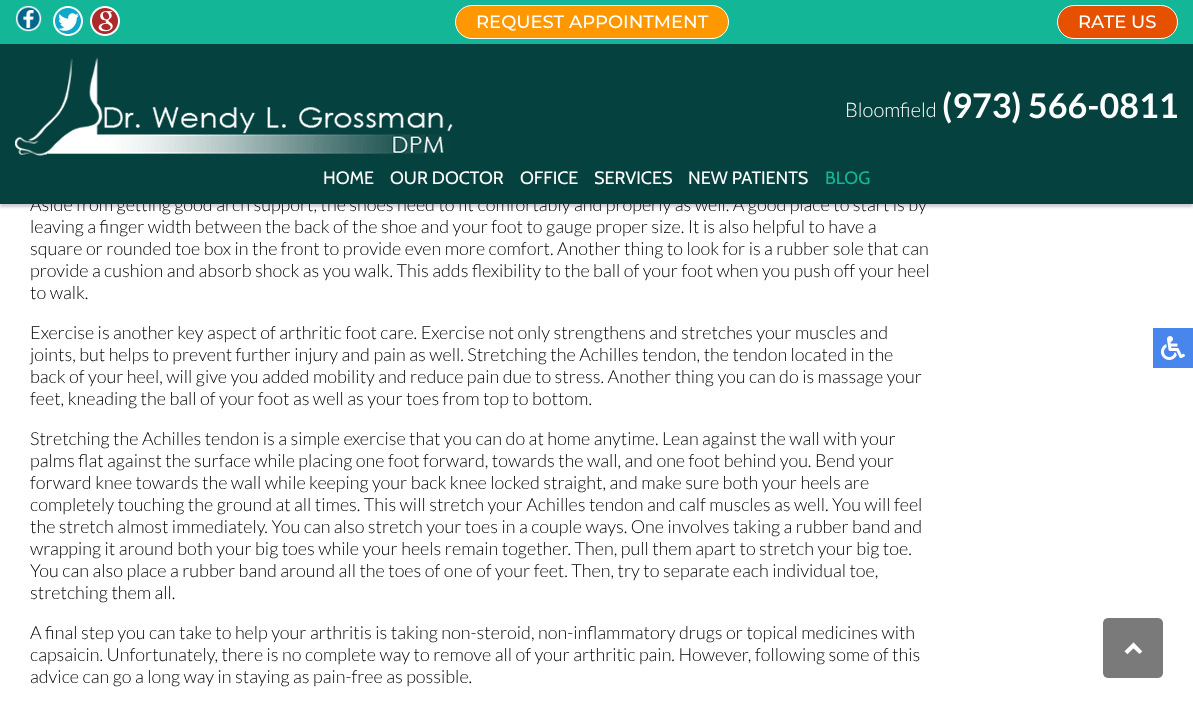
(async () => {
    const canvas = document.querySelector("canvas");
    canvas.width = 1193;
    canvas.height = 728;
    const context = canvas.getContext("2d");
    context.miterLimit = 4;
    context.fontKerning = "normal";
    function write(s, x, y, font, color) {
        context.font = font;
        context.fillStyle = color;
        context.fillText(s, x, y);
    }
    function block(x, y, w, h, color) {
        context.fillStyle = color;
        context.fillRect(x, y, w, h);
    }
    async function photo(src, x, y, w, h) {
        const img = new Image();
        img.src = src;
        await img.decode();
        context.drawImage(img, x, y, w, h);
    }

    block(0, 0, 1193, 728, "rgb(255, 255, 255)");
    context.fillStyle = "rgba(0, 0, 0, 0.2)";
    context.filter = "blur(1.5px)";
    context.beginPath();
    context.rect(0, 3, 1193, 204);
    context.fill();
    context.filter = "none";
    write("Aside from getting good arch support, the shoes need to fit comfortably and properly as well. A good place to start is by", 30, 211, "300 18px Lato", "rgb(0, 0, 0)");
    block(0, 44, 1193, 160, "rgb(5, 65, 62)");
    block(0, 0, 1193, 44, "rgb(19, 183, 152)");
    await photo("media/1.png", 15, 5, 27, 27);
    await photo("media/2.png", 53, 6, 30, 30);
    await photo("media/3.png", 90, 6, 30, 30);
    context.fillStyle = "rgb(255, 152, 0)";
    context.beginPath();
    context.roundRect(455.5, 5.5, 273, 33, 16.5);
    context.fill();
    context.strokeStyle = "rgb(255, 255, 255)";
    context.stroke();
    write("REQUEST APPOINTMENT", 476, 28, "500 18px Montserrat", "rgb(255, 255, 255)");
    context.fillStyle = "rgb(230, 81, 0)";
    context.beginPath();
    context.roundRect(1057.5, 5.5, 120, 33, 16.5);
    context.fill();
    context.stroke();
    write("RATE US", 1078, 28, "500 18px Montserrat", "rgb(255, 255, 255)");
    await photo("media/4.png", 15, 57, 438, 99);
    write("Bloomfield", 845, 117, "300 20px Lato", "rgb(255, 255, 255)");
    write("(973) 566-0811", 942, 118, "bold 34px Lato", "rgb(255, 255, 255)");
    write("HOME", 323, 184, "18px Cabin", "rgb(255, 255, 255)");
    write("OUR DOCTOR", 390, 184, "18px Cabin", "rgb(255, 255, 255)");
    write("OFFICE", 520, 184, "18px Cabin", "rgb(255, 255, 255)");
    write("SERVICES", 594, 184, "18px Cabin", "rgb(255, 255, 255)");
    write("NEW PATIENTS", 688, 184, "18px Cabin", "rgb(255, 255, 255)");
    write("BLOG", 825, 184, "18px Cabin", "rgb(19, 183, 152)");
    write("leaving a finger width between the back of the shoe and your foot to gauge proper size. It is also helpful to have a", 30, 233, "300 18px Lato", "rgb(0, 0, 0)");
    write("square or rounded toe box in the front to provide even more comfort. Another thing to look for is a rubber sole that can", 30, 255, "300 18px Lato", "rgb(0, 0, 0)");
    write("provide a cushion and absorb shock as you walk. This adds flexibility to the ball of your foot when you push off your heel", 30, 277, "300 18px Lato", "rgb(0, 0, 0)");
    write("to walk.", 30, 299, "300 18px Lato", "rgb(0, 0, 0)");
    write("Exercise is another key aspect of arthritic foot care. Exercise not only strengthens and stretches your muscles and", 30, 339, "300 18px Lato", "rgb(0, 0, 0)");
    write("joints, but helps to prevent further injury and pain as well. Stretching the Achilles tendon, the tendon located in the", 30, 361, "300 18px Lato", "rgb(0, 0, 0)");
    write("back of your heel, will give you added mobility and reduce pain due to stress. Another thing you can do is massage your", 30, 383, "300 18px Lato", "rgb(0, 0, 0)");
    write("feet, kneading the ball of your foot as well as your toes from top to bottom.", 30, 405, "300 18px Lato", "rgb(0, 0, 0)");
    write("Stretching the Achilles tendon is a simple exercise that you can do at home anytime. Lean against the wall with your", 30, 445, "300 18px Lato", "rgb(0, 0, 0)");
    write("palms flat against the surface while placing one foot forward, towards the wall, and one foot behind you. Bend your", 30, 467, "300 18px Lato", "rgb(0, 0, 0)");
    write("forward knee towards the wall while keeping your back knee locked straight, and make sure both your heels are", 30, 489, "300 18px Lato", "rgb(0, 0, 0)");
    write("completely touching the ground at all times. This will stretch your Achilles tendon and calf muscles as well. You will feel", 30, 511, "300 18px Lato", "rgb(0, 0, 0)");
    write("the stretch almost immediately. You can also stretch your toes in a couple ways. One involves taking a rubber band and", 30, 533, "300 18px Lato", "rgb(0, 0, 0)");
    write("wrapping it around both your big toes while your heels remain together. Then, pull them apart to stretch your big toe.", 30, 555, "300 18px Lato", "rgb(0, 0, 0)");
    write("You can also place a rubber band around all the toes of one of your feet. Then, try to separate each individual toe,", 30, 577, "300 18px Lato", "rgb(0, 0, 0)");
    write("stretching them all.", 30, 599, "300 18px Lato", "rgb(0, 0, 0)");
    write("A final step you can take to help your arthritis is taking non-steroid, non-inflammatory drugs or topical medicines with", 30, 639, "300 18px Lato", "rgb(0, 0, 0)");
    write("capsaicin. Unfortunately, there is no complete way to remove all of your arthritic pain. However, following some of this", 30, 661, "300 18px Lato", "rgb(0, 0, 0)");
    write("advice can go a long way in staying as pain-free as possible.", 30, 683, "300 18px Lato", "rgb(0, 0, 0)");
    block(1153, 328, 40, 40, "rgb(72, 133, 237)");
    await photo("media/5.png", 1161, 336, 24, 24);
    await photo("media/6.png", 1103, 618, 60, 60);
})();
